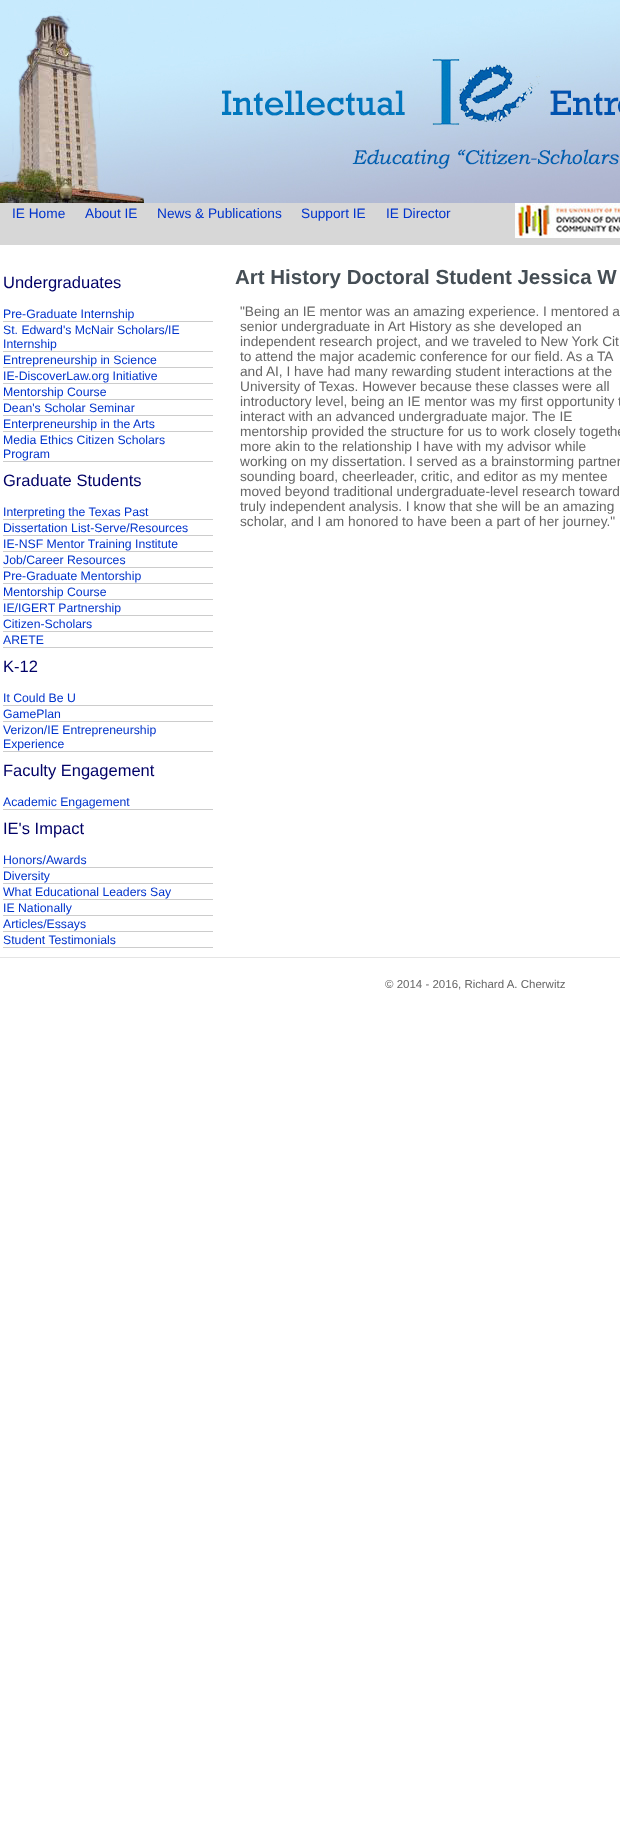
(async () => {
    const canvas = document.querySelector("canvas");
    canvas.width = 620;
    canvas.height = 1831;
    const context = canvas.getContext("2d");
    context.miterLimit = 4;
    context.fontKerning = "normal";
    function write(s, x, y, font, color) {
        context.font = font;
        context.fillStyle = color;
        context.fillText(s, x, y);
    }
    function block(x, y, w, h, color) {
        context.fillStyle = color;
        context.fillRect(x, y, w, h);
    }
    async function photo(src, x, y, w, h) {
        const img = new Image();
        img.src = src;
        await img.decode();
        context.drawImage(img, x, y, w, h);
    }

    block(0, 0, 620, 1831, "rgb(255, 255, 255)");
    block(0, 203, 620, 42, "rgb(215, 215, 215)");
    await photo("media/1.png", 0, 0, 620, 203);
    write("IE Home", 12, 218, "13.7px Liberation Sans", "rgb(0, 51, 204)");
    write("About IE", 85, 218, "13.7px Liberation Sans", "rgb(0, 51, 204)");
    write("News & Publications", 157, 218, "13.7px Liberation Sans", "rgb(0, 51, 204)");
    write("Support IE", 301, 218, "13.7px Liberation Sans", "rgb(0, 51, 204)");
    write("IE Director", 386, 218, "13.7px Liberation Sans", "rgb(0, 51, 204)");
    await photo("media/2.png", 515, 203, 105, 35);
    write("Undergraduates", 3, 288, "16.5px Liberation Sans", "rgb(0, 0, 102)");
    block(3, 321, 210, 1, "rgb(204, 204, 204)");
    write("Pre-Graduate Internship", 3, 318, "12.25px Liberation Sans", "rgb(0, 51, 204)");
    block(3, 351, 210, 1, "rgb(204, 204, 204)");
    write("St. Edward's McNair Scholars/IE", 3, 334, "12.25px Liberation Sans", "rgb(0, 51, 204)");
    write("Internship", 3, 348, "12.25px Liberation Sans", "rgb(0, 51, 204)");
    block(3, 367, 210, 1, "rgb(204, 204, 204)");
    write("Entrepreneurship in Science", 3, 364, "12.25px Liberation Sans", "rgb(0, 51, 204)");
    block(3, 383, 210, 1, "rgb(204, 204, 204)");
    write("IE-DiscoverLaw.org Initiative", 3, 380, "12.25px Liberation Sans", "rgb(0, 51, 204)");
    block(3, 399, 210, 1, "rgb(204, 204, 204)");
    write("Mentorship Course", 3, 396, "12.25px Liberation Sans", "rgb(0, 51, 204)");
    block(3, 415, 210, 1, "rgb(204, 204, 204)");
    write("Dean's Scholar Seminar", 3, 412, "12.25px Liberation Sans", "rgb(0, 51, 204)");
    block(3, 431, 210, 1, "rgb(204, 204, 204)");
    write("Enterpreneurship in the Arts", 3, 428, "12.25px Liberation Sans", "rgb(0, 51, 204)");
    block(3, 461, 210, 1, "rgb(204, 204, 204)");
    write("Media Ethics Citizen Scholars", 3, 444, "12.25px Liberation Sans", "rgb(0, 51, 204)");
    write("Program", 3, 458, "12.25px Liberation Sans", "rgb(0, 51, 204)");
    write("Graduate Students", 3, 486, "16.5px Liberation Sans", "rgb(0, 0, 102)");
    block(3, 519, 210, 1, "rgb(204, 204, 204)");
    write("Interpreting the Texas Past", 3, 516, "12.25px Liberation Sans", "rgb(0, 51, 204)");
    block(3, 535, 210, 1, "rgb(204, 204, 204)");
    write("Dissertation List-Serve/Resources", 3, 532, "12.25px Liberation Sans", "rgb(0, 51, 204)");
    block(3, 551, 210, 1, "rgb(204, 204, 204)");
    write("IE-NSF Mentor Training Institute", 3, 548, "12.25px Liberation Sans", "rgb(0, 51, 204)");
    block(3, 567, 210, 1, "rgb(204, 204, 204)");
    write("Job/Career Resources", 3, 564, "12.25px Liberation Sans", "rgb(0, 51, 204)");
    block(3, 583, 210, 1, "rgb(204, 204, 204)");
    write("Pre-Graduate Mentorship", 3, 580, "12.25px Liberation Sans", "rgb(0, 51, 204)");
    block(3, 599, 210, 1, "rgb(204, 204, 204)");
    write("Mentorship Course", 3, 596, "12.25px Liberation Sans", "rgb(0, 51, 204)");
    block(3, 615, 210, 1, "rgb(204, 204, 204)");
    write("IE/IGERT Partnership", 3, 612, "12.25px Liberation Sans", "rgb(0, 51, 204)");
    block(3, 631, 210, 1, "rgb(204, 204, 204)");
    write("Citizen-Scholars", 3, 628, "12.25px Liberation Sans", "rgb(0, 51, 204)");
    block(3, 647, 210, 1, "rgb(204, 204, 204)");
    write("ARETE", 3, 644, "12.25px Liberation Sans", "rgb(0, 51, 204)");
    write("K-12", 3, 672, "16.5px Liberation Sans", "rgb(0, 0, 102)");
    block(3, 705, 210, 1, "rgb(204, 204, 204)");
    write("It Could Be U", 3, 702, "12.25px Liberation Sans", "rgb(0, 51, 204)");
    block(3, 721, 210, 1, "rgb(204, 204, 204)");
    write("GamePlan", 3, 718, "12.25px Liberation Sans", "rgb(0, 51, 204)");
    block(3, 751, 210, 1, "rgb(204, 204, 204)");
    write("Verizon/IE Entrepreneurship", 3, 734, "12.25px Liberation Sans", "rgb(0, 51, 204)");
    write("Experience", 3, 748, "12.25px Liberation Sans", "rgb(0, 51, 204)");
    write("Faculty Engagement", 3, 776, "16.5px Liberation Sans", "rgb(0, 0, 102)");
    block(3, 809, 210, 1, "rgb(204, 204, 204)");
    write("Academic Engagement", 3, 806, "12.25px Liberation Sans", "rgb(0, 51, 204)");
    write("IE's Impact", 3, 834, "16.5px Liberation Sans", "rgb(0, 0, 102)");
    block(3, 867, 210, 1, "rgb(204, 204, 204)");
    write("Honors/Awards", 3, 864, "12.25px Liberation Sans", "rgb(0, 51, 204)");
    block(3, 883, 210, 1, "rgb(204, 204, 204)");
    write("Diversity", 3, 880, "12.25px Liberation Sans", "rgb(0, 51, 204)");
    block(3, 899, 210, 1, "rgb(204, 204, 204)");
    write("What Educational Leaders Say", 3, 896, "12.25px Liberation Sans", "rgb(0, 51, 204)");
    block(3, 915, 210, 1, "rgb(204, 204, 204)");
    write("IE Nationally", 3, 912, "12.25px Liberation Sans", "rgb(0, 51, 204)");
    block(3, 931, 210, 1, "rgb(204, 204, 204)");
    write("Articles/Essays", 3, 928, "12.25px Liberation Sans", "rgb(0, 51, 204)");
    block(3, 947, 210, 1, "rgb(204, 204, 204)");
    write("Student Testimonials", 3, 944, "12.25px Liberation Sans", "rgb(0, 51, 204)");
    write("Art History Doctoral Student Jessica W", 235, 284, "bold 20.5px Liberation Sans", "rgb(69, 78, 85)");
    write("\"Being an IE mentor was an amazing experience. I mentored a", 240, 316, "13.7px Liberation Sans", "rgb(102, 102, 102)");
    write("senior undergraduate in Art History as she developed an", 240, 331, "13.7px Liberation Sans", "rgb(102, 102, 102)");
    write("independent research project, and we traveled to New York Cit", 240, 346, "13.7px Liberation Sans", "rgb(102, 102, 102)");
    context.wordSpacing = "-0.1px";
    write("to attend the major academic conference for our field. As a TA", 240, 361, "13.7px Liberation Sans", "rgb(102, 102, 102)");
    context.wordSpacing = "0px";
    write("and AI, I have had many rewarding student interactions at the", 240, 376, "13.7px Liberation Sans", "rgb(102, 102, 102)");
    write("University of Texas. However because these classes were all", 240, 391, "13.7px Liberation Sans", "rgb(102, 102, 102)");
    write("introductory level, being an IE mentor was my first opportunity t", 240, 406, "13.7px Liberation Sans", "rgb(102, 102, 102)");
    context.wordSpacing = "-0.1px";
    write("interact with an advanced undergraduate major.", 240, 421, "13.7px Liberation Sans", "rgb(102, 102, 102)");
    context.wordSpacing = "0px";
    write("The IE", 532, 421, "13.7px Liberation Sans", "rgb(102, 102, 102)");
    write("mentorship provided the structure for us to work closely togethe", 240, 436, "13.7px Liberation Sans", "rgb(102, 102, 102)");
    write("more akin to the relationship I have with my advisor while", 240, 451, "13.7px Liberation Sans", "rgb(102, 102, 102)");
    write("working on my dissertation.", 240, 466, "13.7px Liberation Sans", "rgb(102, 102, 102)");
    write("I served as a brainstorming partner", 409, 466, "13.7px Liberation Sans", "rgb(102, 102, 102)");
    write("sounding board, cheerleader, critic, and editor as my mentee", 240, 481, "13.7px Liberation Sans", "rgb(102, 102, 102)");
    context.wordSpacing = "-0.1px";
    write("moved beyond traditional undergraduate-level research toward", 240, 496, "13.7px Liberation Sans", "rgb(102, 102, 102)");
    context.wordSpacing = "0px";
    write("truly independent analysis. I know that she will be an amazing", 240, 511, "13.7px Liberation Sans", "rgb(102, 102, 102)");
    write("scholar, and I am honored to have been a part of her journey.\"", 240, 526, "13.7px Liberation Sans", "rgb(102, 102, 102)");
    block(0, 957, 620, 1, "rgb(229, 229, 229)");
    write("© 2014 - 2016, Richard A. Cherwitz", 385, 988, "11.5px Liberation Sans", "rgb(102, 102, 102)");
})();
